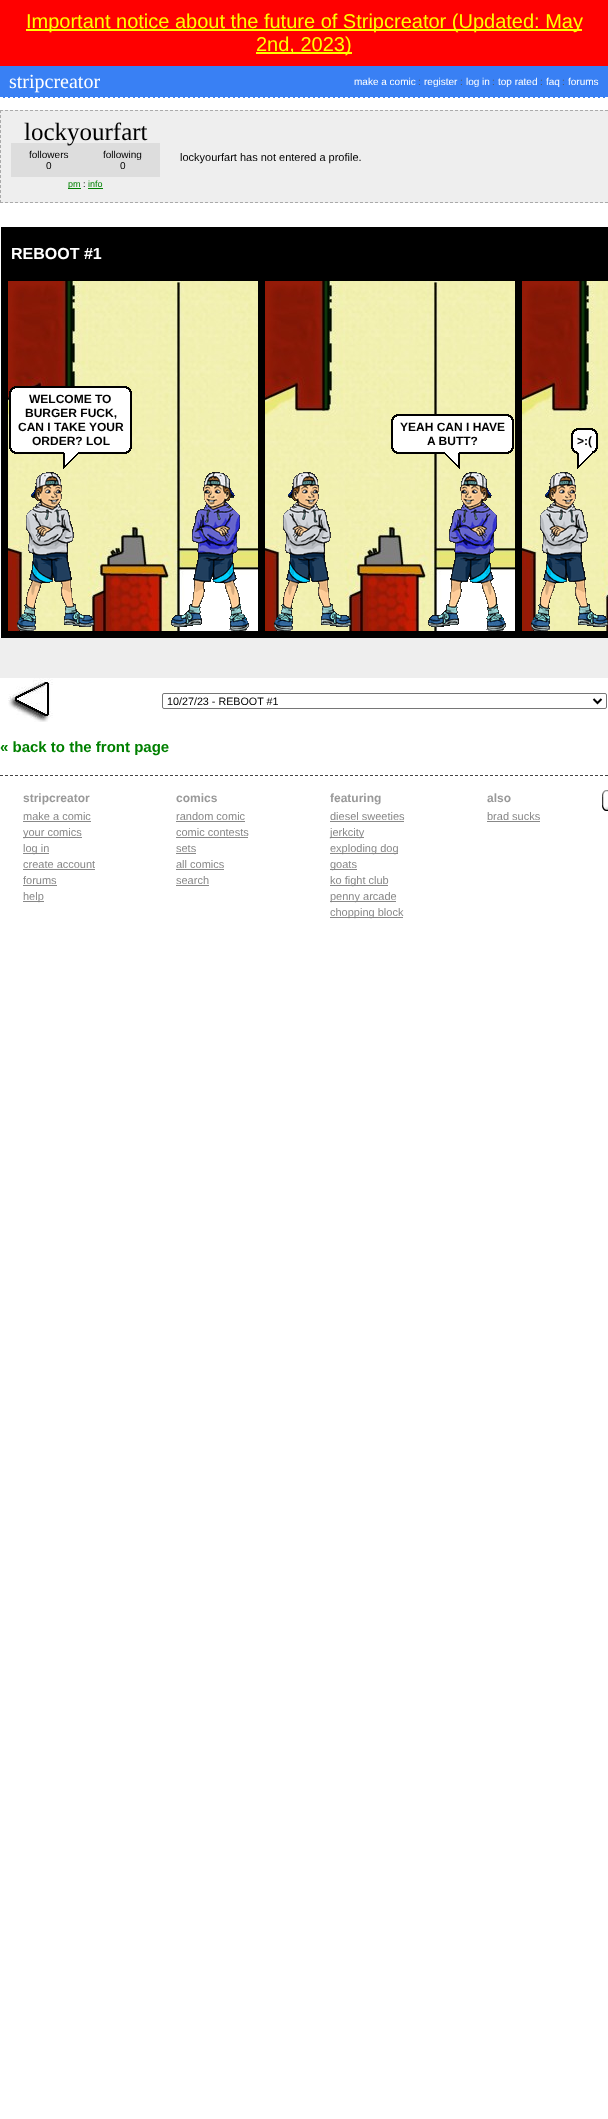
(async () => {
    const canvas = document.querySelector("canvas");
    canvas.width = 608;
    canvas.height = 2119;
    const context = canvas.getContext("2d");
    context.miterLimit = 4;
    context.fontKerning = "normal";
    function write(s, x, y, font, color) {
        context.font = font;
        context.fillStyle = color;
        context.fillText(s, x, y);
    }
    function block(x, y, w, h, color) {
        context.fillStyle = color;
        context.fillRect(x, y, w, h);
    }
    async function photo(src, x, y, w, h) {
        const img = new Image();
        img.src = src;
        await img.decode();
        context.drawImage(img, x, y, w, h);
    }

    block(0, 0, 608, 2119, "rgb(255, 255, 255)");
    block(0, 0, 608, 66, "rgb(255, 0, 0)");
    block(26, 29, 556, 2, "rgb(255, 255, 0)");
    write("Important notice about the future of Stripcreator (Updated: May", 26, 28, "20px Liberation Sans", "rgb(255, 255, 0)");
    block(256, 52, 96, 2, "rgb(255, 255, 0)");
    write("2nd, 2023)", 256, 51, "20px Liberation Sans", "rgb(255, 255, 0)");
    block(0, 66, 608, 32, "rgb(57, 128, 244)");
    context.beginPath();
    context.moveTo(0, 97.5);
    context.lineTo(608, 97.5);
    context.strokeStyle = "rgb(255, 255, 255)";
    context.setLineDash([3, 2]);
    context.stroke();
    write("stripcreator", 9, 88, "20px Liberation Serif", "rgb(255, 255, 255)");
    write("make a comic", 354, 85, "10px Liberation Sans", "rgb(255, 255, 255)");
    write(":", 418, 85, "10px Liberation Sans", "rgb(85, 85, 85)");
    write("register", 424, 85, "10px Liberation Sans", "rgb(255, 255, 255)");
    write(":", 460, 85, "10px Liberation Sans", "rgb(85, 85, 85)");
    write("log in", 466, 85, "10px Liberation Sans", "rgb(255, 255, 255)");
    write(":", 492, 85, "10px Liberation Sans", "rgb(85, 85, 85)");
    write("top rated", 498, 85, "10px Liberation Sans", "rgb(255, 255, 255)");
    write(":", 540, 85, "10px Liberation Sans", "rgb(85, 85, 85)");
    write("faq", 546, 85, "10px Liberation Sans", "rgb(255, 255, 255)");
    write(":", 562, 85, "10px Liberation Sans", "rgb(85, 85, 85)");
    write("forums", 568, 85, "10px Liberation Sans", "rgb(255, 255, 255)");
    block(0, 110, 608, 93, "rgb(238, 238, 238)");
    context.beginPath();
    context.moveTo(0, 110.5);
    context.lineTo(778, 110.5);
    context.strokeStyle = "rgb(170, 170, 170)";
    context.stroke();
    context.beginPath();
    context.moveTo(0, 202.5);
    context.lineTo(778, 202.5);
    context.stroke();
    context.beginPath();
    context.moveTo(0.5, 110);
    context.lineTo(0.5, 203);
    context.stroke();
    block(11, 143, 149, 34, "rgb(221, 221, 221)");
    write("lockyourfart", 24, 140, "25px Liberation Serif", "rgb(0, 0, 0)");
    write("followers", 29, 158, "10px Liberation Sans", "rgb(0, 0, 0)");
    write("0", 46, 169, "10px Liberation Sans", "rgb(0, 0, 0)");
    write("following", 103, 158, "10px Liberation Sans", "rgb(0, 0, 0)");
    write("0", 120, 169, "10px Liberation Sans", "rgb(0, 0, 0)");
    block(68, 188, 13, 1, "rgb(0, 128, 0)");
    write("pm", 68, 187, "9px Liberation Sans", "rgb(0, 128, 0)");
    write(":", 83, 187, "9px Liberation Sans", "rgb(0, 0, 0)");
    write("info", 88, 187, "9px Liberation Sans", "rgb(0, 128, 0)");
    block(88, 188, 15, 1, "rgb(0, 128, 0)");
    write("lockyourfart has not entered a profile.", 180, 161, "11px Liberation Sans", "rgb(0, 0, 0)");
    block(1, 227, 607, 411, "rgb(0, 0, 0)");
    write("REBOOT #1", 11, 259, "bold 16px Liberation Sans", "rgb(255, 255, 255)");
    await photo("media/1.png", 8, 281, 250, 350);
    await photo("media/2.png", 9, 386, 6, 6);
    await photo("media/3.png", 15, 386, 111, 6);
    await photo("media/4.png", 126, 386, 6, 6);
    await photo("media/5.png", 9, 392, 6, 56);
    block(15, 392, 111, 56, "rgb(255, 255, 255)");
    write("WELCOME TO", 29, 403, "bold 12px Liberation Sans", "rgb(0, 0, 0)");
    write("BURGER FUCK,", 25, 417, "bold 12px Liberation Sans", "rgb(0, 0, 0)");
    write("CAN I TAKE YOUR", 18, 431, "bold 12px Liberation Sans", "rgb(0, 0, 0)");
    write("ORDER? LOL", 32, 445, "bold 12px Liberation Sans", "rgb(0, 0, 0)");
    await photo("media/6.png", 126, 392, 6, 56);
    await photo("media/7.png", 9, 448, 6, 6);
    await photo("media/8.png", 15, 448, 111, 6);
    await photo("media/9.png", 126, 448, 6, 6);
    await photo("media/10.png", 63, 452, 15, 17);
    await photo("media/11.png", 17, 472, 77, 159);
    await photo("media/12.png", 171, 472, 78, 159);
    await photo("media/1.png", 265, 281, 250, 350);
    await photo("media/13.png", 391, 414, 6, 6);
    await photo("media/3.png", 397, 414, 111, 6);
    await photo("media/14.png", 508, 414, 6, 6);
    await photo("media/15.png", 391, 420, 6, 28);
    block(397, 420, 111, 28, "rgb(255, 255, 255)");
    write("YEAH CAN I HAVE", 400, 431, "bold 12px Liberation Sans", "rgb(0, 0, 0)");
    write("A BUTT?", 427, 445, "bold 12px Liberation Sans", "rgb(0, 0, 0)");
    await photo("media/16.png", 508, 420, 6, 28);
    await photo("media/17.png", 391, 448, 6, 6);
    await photo("media/8.png", 397, 448, 111, 6);
    await photo("media/18.png", 508, 448, 6, 6);
    await photo("media/19.png", 445, 452, 15, 17);
    await photo("media/12.png", 428, 472, 78, 159);
    await photo("media/11.png", 274, 472, 77, 159);
    await photo("media/20.png", 522, 281, 86, 350);
    await photo("media/21.png", 571, 428, 6, 6);
    await photo("media/22.png", 577, 428, 15, 6);
    await photo("media/23.png", 592, 428, 6, 6);
    await photo("media/24.png", 571, 434, 6, 14);
    block(577, 434, 15, 14, "rgb(255, 255, 255)");
    write(">:(", 577, 445, "bold 12px Liberation Sans", "rgb(0, 0, 0)");
    await photo("media/25.png", 592, 434, 6, 14);
    await photo("media/26.png", 571, 448, 6, 6);
    await photo("media/27.png", 577, 448, 15, 4);
    await photo("media/28.png", 592, 448, 6, 6);
    await photo("media/10.png", 577, 452, 15, 17);
    await photo("media/11.png", 531, 472, 77, 159);
    block(0, 638, 608, 40, "rgb(238, 238, 238)");
    await photo("media/29.png", 8, 678, 45, 44);
    context.beginPath();
    context.roundRect(162.5, 693.5, 444, 15, 1.5);
    context.strokeStyle = "rgb(118, 118, 118)";
    context.setLineDash([]);
    context.stroke();
    context.beginPath();
    context.moveTo(593.5, 699);
    context.lineTo(597.5, 703);
    context.lineTo(601.5, 699);
    context.strokeStyle = "rgb(0, 0, 0)";
    context.lineWidth = 2;
    context.stroke();
    write("10/27/23 - REBOOT #1", 167, 705, "10.75px Liberation Sans", "rgb(0, 0, 0)");
    write("« back to the front page", 0, 752, "bold 15px Liberation Sans", "rgb(0, 128, 0)");
    context.beginPath();
    context.moveTo(0, 775.5);
    context.lineTo(608, 775.5);
    context.strokeStyle = "rgb(68, 68, 68)";
    context.lineWidth = 1;
    context.setLineDash([3, 2]);
    context.stroke();
    write("stripcreator", 23, 802, "bold 12px Liberation Sans", "rgb(153, 153, 153)");
    write("make a comic", 23, 820, "11px Liberation Sans", "rgb(136, 136, 136)");
    block(23, 821, 68, 1, "rgb(136, 136, 136)");
    block(23, 837, 59, 1, "rgb(136, 136, 136)");
    write("your comics", 23, 836, "11px Liberation Sans", "rgb(136, 136, 136)");
    block(23, 853, 26, 1, "rgb(136, 136, 136)");
    write("log in", 23, 852, "11px Liberation Sans", "rgb(136, 136, 136)");
    write("create account", 23, 868, "11px Liberation Sans", "rgb(136, 136, 136)");
    block(23, 869, 72, 1, "rgb(136, 136, 136)");
    write("forums", 23, 884, "11px Liberation Sans", "rgb(136, 136, 136)");
    block(23, 885, 34, 1, "rgb(136, 136, 136)");
    block(23, 901, 21, 1, "rgb(136, 136, 136)");
    write("help", 23, 900, "11px Liberation Sans", "rgb(136, 136, 136)");
    write("comics", 176, 802, "bold 12px Liberation Sans", "rgb(153, 153, 153)");
    write("random comic", 176, 820, "11px Liberation Sans", "rgb(136, 136, 136)");
    block(176, 821, 69, 1, "rgb(136, 136, 136)");
    write("comic contests", 176, 836, "11px Liberation Sans", "rgb(136, 136, 136)");
    block(176, 837, 72, 1, "rgb(136, 136, 136)");
    write("sets", 176, 852, "11px Liberation Sans", "rgb(136, 136, 136)");
    block(176, 853, 20, 1, "rgb(136, 136, 136)");
    write("all comics", 176, 868, "11px Liberation Sans", "rgb(136, 136, 136)");
    block(176, 869, 48, 1, "rgb(136, 136, 136)");
    write("search", 176, 884, "11px Liberation Sans", "rgb(136, 136, 136)");
    block(176, 885, 33, 1, "rgb(136, 136, 136)");
    write("featuring", 330, 802, "bold 12px Liberation Sans", "rgb(153, 153, 153)");
    write("diesel sweeties", 330, 820, "11px Liberation Sans", "rgb(136, 136, 136)");
    block(330, 821, 74, 1, "rgb(136, 136, 136)");
    block(330, 837, 34, 1, "rgb(136, 136, 136)");
    write("jerkcity", 330, 836, "11px Liberation Sans", "rgb(136, 136, 136)");
    block(330, 853, 68, 1, "rgb(136, 136, 136)");
    write("exploding dog", 330, 852, "11px Liberation Sans", "rgb(136, 136, 136)");
    block(330, 869, 27, 1, "rgb(136, 136, 136)");
    write("goats", 330, 868, "11px Liberation Sans", "rgb(136, 136, 136)");
    block(330, 885, 58, 1, "rgb(136, 136, 136)");
    write("ko fight club", 330, 884, "11px Liberation Sans", "rgb(136, 136, 136)");
    block(330, 901, 66, 1, "rgb(136, 136, 136)");
    write("penny arcade", 330, 900, "11px Liberation Sans", "rgb(136, 136, 136)");
    block(330, 917, 73, 1, "rgb(136, 136, 136)");
    write("chopping block", 330, 916, "11px Liberation Sans", "rgb(136, 136, 136)");
    write("also", 487, 802, "bold 12px Liberation Sans", "rgb(153, 153, 153)");
    write("brad sucks", 487, 820, "11px Liberation Sans", "rgb(136, 136, 136)");
    block(487, 821, 53, 1, "rgb(136, 136, 136)");
    await photo("media/30.png", 602, 790, 6, 21);
})();
